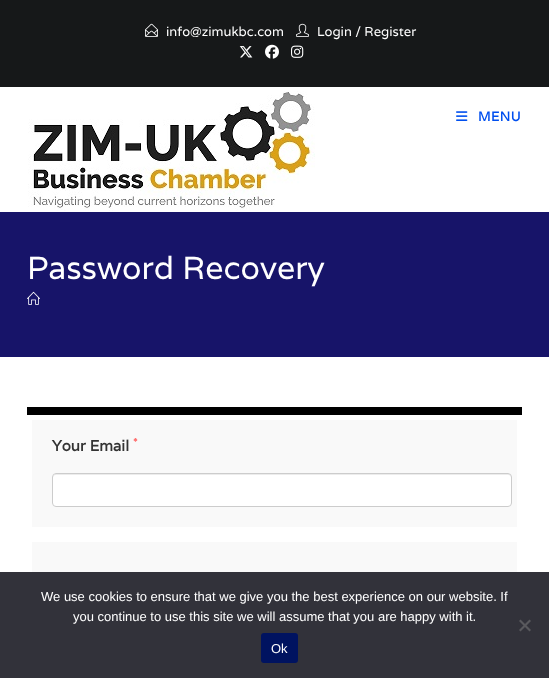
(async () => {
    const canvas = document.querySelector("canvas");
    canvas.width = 549;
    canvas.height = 678;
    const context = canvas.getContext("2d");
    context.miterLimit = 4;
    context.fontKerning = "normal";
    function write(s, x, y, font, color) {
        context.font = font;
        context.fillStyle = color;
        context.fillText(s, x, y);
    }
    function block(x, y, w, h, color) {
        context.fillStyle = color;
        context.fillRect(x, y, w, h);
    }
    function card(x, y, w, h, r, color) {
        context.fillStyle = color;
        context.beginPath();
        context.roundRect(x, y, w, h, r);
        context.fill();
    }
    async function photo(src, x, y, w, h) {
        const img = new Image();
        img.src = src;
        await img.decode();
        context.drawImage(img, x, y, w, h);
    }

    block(0, 0, 549, 678, "rgb(255, 255, 255)");
    block(0, 0, 549, 87, "rgb(22, 24, 25)");
    await photo("media/1.png", 145, 23, 13, 14);
    write("info@zimukbc.com", 166, 36, "13px Varela", "rgb(255, 255, 255)");
    await photo("media/2.png", 296, 23, 13, 14);
    write("Login / Register", 317, 36, "13px Varela", "rgb(255, 255, 255)");
    await photo("media/3.png", 239, 46, 14, 12);
    await photo("media/4.png", 265, 44, 14, 15);
    await photo("media/5.png", 291, 45, 13, 13);
    await photo("media/6.png", 28, 91, 287, 120);
    await photo("media/7.png", 456, 111, 12, 10);
    context.letterSpacing = "0.5px";
    write("MENU", 478, 121, "bold 13px Varela", "rgb(0, 79, 239)");
    block(0, 212, 549, 145, "rgb(23, 20, 105)");
    context.letterSpacing = "0px";
    write("Password Recovery", 27, 279, "32px Varela", "rgb(255, 255, 255)");
    await photo("media/8.png", 27, 291, 13, 14);
    block(27, 407, 495, 8, "rgb(0, 0, 0)");
    block(32, 420, 485, 107, "rgb(249, 249, 249)");
    write("Your Email", 52, 451, "bold 15px Varela", "rgb(51, 51, 51)");
    write("*", 133, 446, "bold 11px Varela", "rgb(255, 108, 108)");
    card(52, 473, 460, 34, 4, "rgb(255, 255, 255)");
    context.fillStyle = "rgb(236, 236, 236)";
    context.beginPath();
    context.moveTo(56, 475);
    context.lineTo(508, 475);
    context.bezierCurveTo(510, 475, 511, 476, 511, 478);
    context.bezierCurveTo(511, 476, 511, 474, 509, 474);
    context.lineTo(55, 474);
    context.lineTo(53, 476);
    context.lineTo(53, 478);
    context.bezierCurveTo(53, 476, 54, 475, 56, 475);
    context.closePath();
    context.fill();
    context.beginPath();
    context.roundRect(52.5, 473.5, 459, 33, 3.5);
    context.strokeStyle = "rgb(204, 204, 204)";
    context.stroke();
    block(32, 542, 485, 30, "rgb(249, 249, 249)");
    block(0, 572, 549, 106, "rgb(50, 50, 58)");
    write("We use cookies to ensure that we give you the best experience on our website. If", 41, 601, "13px Liberation Sans", "rgb(255, 255, 255)");
    write("you continue to use this site we will assume that you are happy with it.", 73, 621, "13px Liberation Sans", "rgb(255, 255, 255)");
    context.fillStyle = "rgb(89, 89, 93)";
    context.beginPath();
    context.moveTo(529.5, 619.5);
    context.lineTo(531, 621);
    context.lineTo(520.5, 631.5);
    context.lineTo(519, 630);
    context.closePath();
    context.fill();
    context.beginPath();
    context.moveTo(519, 621);
    context.lineTo(520.5, 619.5);
    context.lineTo(531, 630);
    context.lineTo(529.5, 631.5);
    context.closePath();
    context.fill();
    card(261, 633, 37, 30, 3, "rgb(0, 19, 96)");
    write("Ok", 271, 653, "13px Liberation Sans", "rgb(255, 255, 255)");
})();
